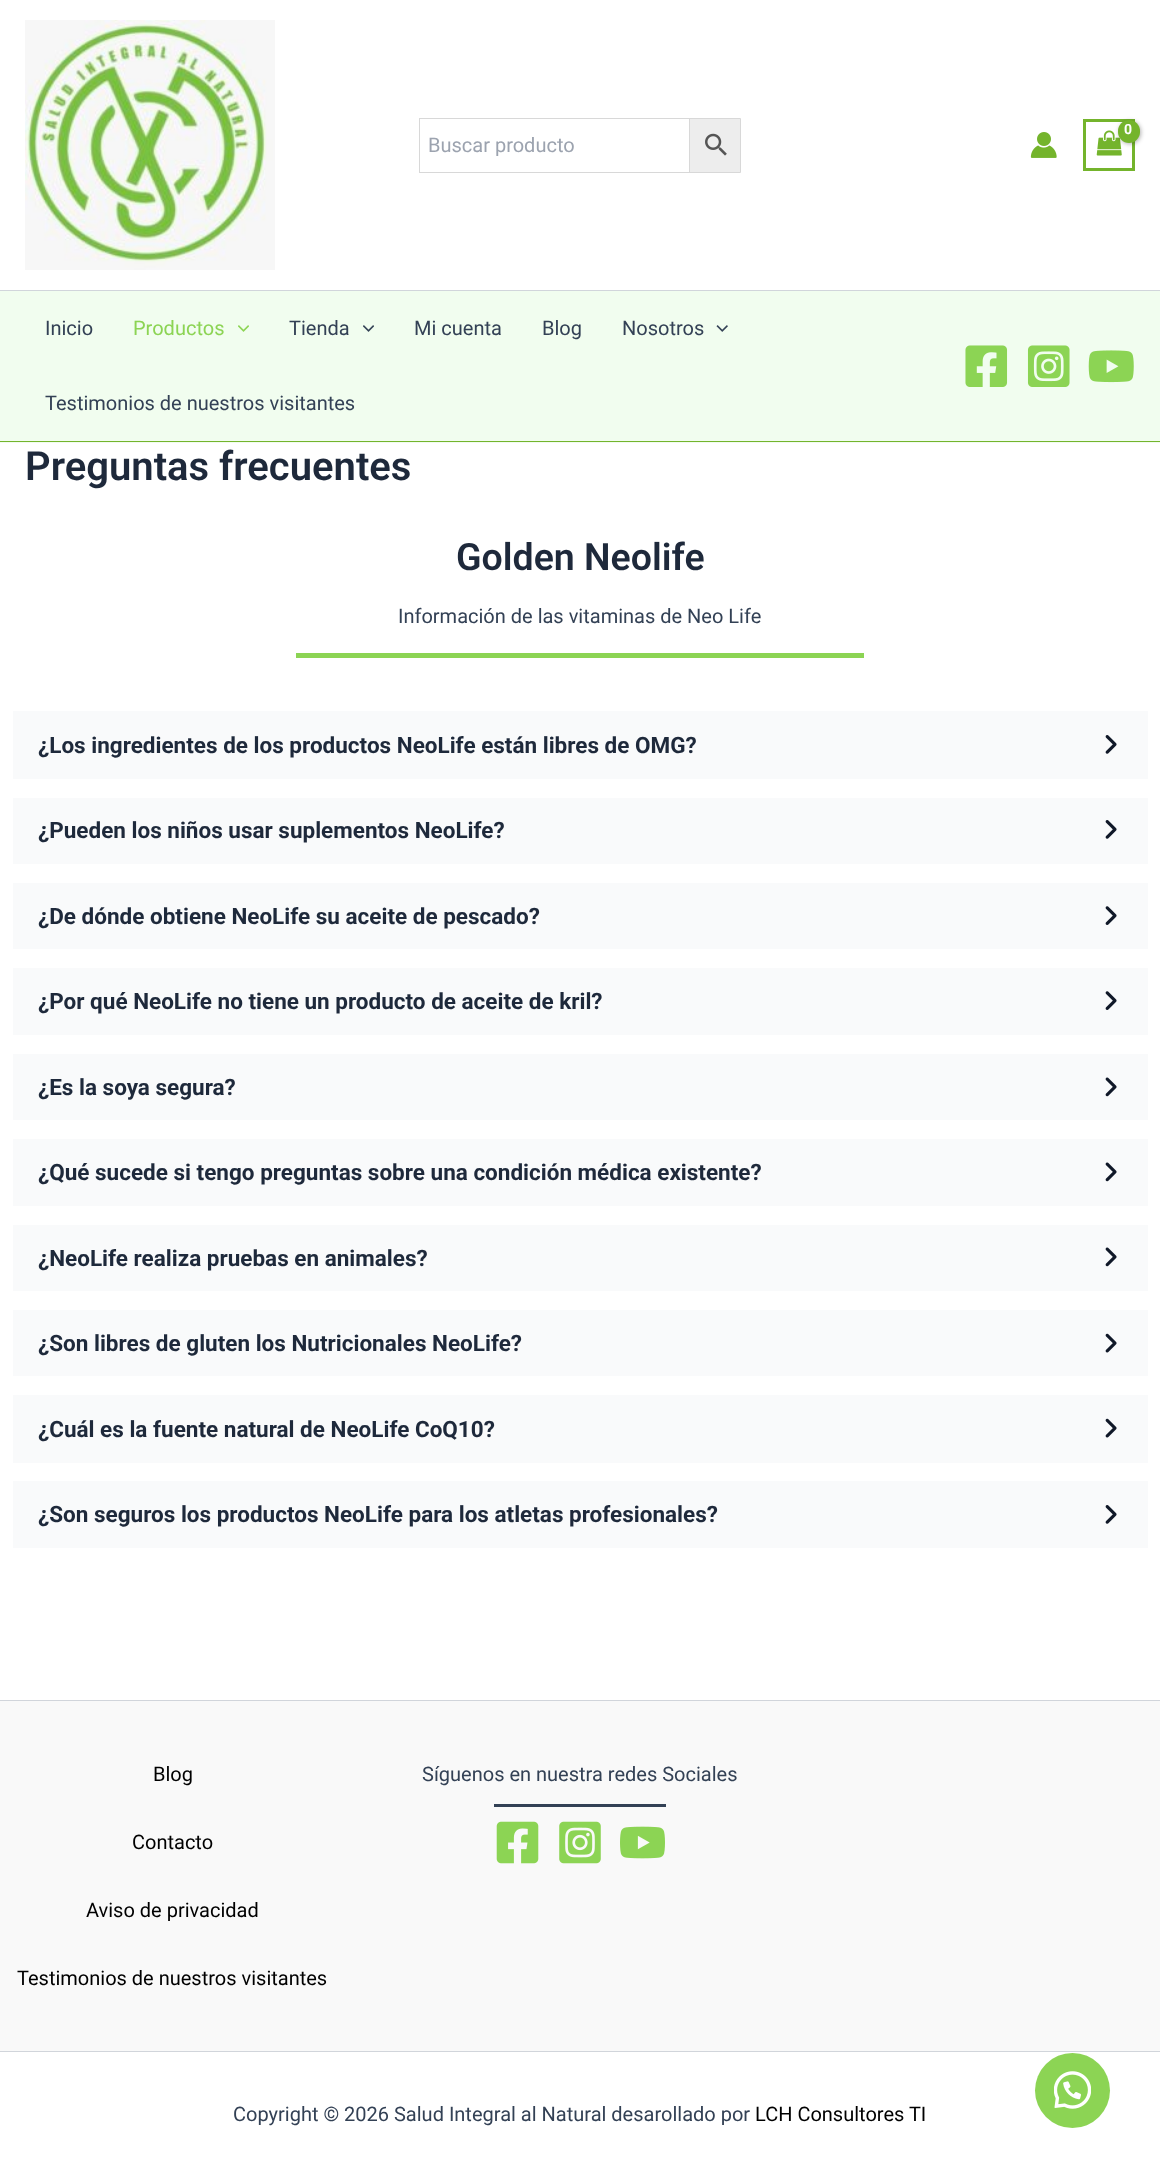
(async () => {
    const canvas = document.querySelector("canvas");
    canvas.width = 1160;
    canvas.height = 2177;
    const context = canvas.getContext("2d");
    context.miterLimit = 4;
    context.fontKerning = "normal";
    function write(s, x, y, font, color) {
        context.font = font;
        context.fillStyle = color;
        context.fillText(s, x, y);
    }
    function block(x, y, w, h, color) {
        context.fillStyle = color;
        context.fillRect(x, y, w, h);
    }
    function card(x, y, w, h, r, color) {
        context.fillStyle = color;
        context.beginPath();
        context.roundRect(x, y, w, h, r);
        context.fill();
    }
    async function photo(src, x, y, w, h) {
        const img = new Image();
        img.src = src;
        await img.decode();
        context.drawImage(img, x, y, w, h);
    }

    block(0, 0, 1160, 2177, "rgb(255, 255, 255)");
    block(0, 290, 1160, 1, "rgb(209, 213, 219)");
    await photo("media/1.png", 25, 20, 250, 250);
    context.strokeStyle = "rgb(116, 180, 44)";
    context.lineWidth = 3;
    context.strokeRect(1084.5, 120.5, 49, 49);
    await photo("media/2.png", 1096, 130, 26, 26);
    context.fillStyle = "rgba(0, 0, 0, 0.3)";
    context.filter = "blur(2px)";
    context.beginPath();
    context.roundRect(1119, 121, 22, 23, 11);
    context.fill();
    context.filter = "none";
    card(1118, 120, 22, 23, 11, "rgb(116, 180, 44)");
    context.letterSpacing = "-1px";
    write("0", 1124, 134, "bold 14px Roboto", "rgb(255, 255, 255)");
    await photo("media/3.png", 1030, 132, 27, 26);
    context.fillStyle = "rgb(237, 237, 237)";
    context.beginPath();
    context.rect(689.5, 118.5, 51, 54);
    context.fill();
    context.strokeStyle = "rgb(216, 216, 216)";
    context.lineWidth = 1;
    context.stroke();
    context.strokeRect(419.5, 118.5, 270, 54);
    context.letterSpacing = "0px";
    write("Buscar producto", 428, 152, "20px Roboto", "rgb(156, 163, 175)");
    await photo("media/4.png", 705, 133, 22, 23);
    block(0, 291, 1160, 152, "rgb(241, 253, 239)");
    block(0, 441, 1160, 1, "rgb(116, 180, 44)");
    write("Inicio", 45, 335, "20px Roboto", "rgb(51, 65, 85)");
    write("Productos", 133, 335, "20px Roboto", "rgb(140, 212, 84)");
    await photo("media/5.png", 238, 325, 11, 7);
    write("Tienda", 289, 335, "20px Roboto", "rgb(51, 65, 85)");
    await photo("media/6.png", 363, 325, 11, 7);
    write("Mi cuenta", 414, 335, "20px Roboto", "rgb(51, 65, 85)");
    write("Blog", 542, 335, "20px Roboto", "rgb(51, 65, 85)");
    write("Nosotros", 622, 335, "20px Roboto", "rgb(51, 65, 85)");
    await photo("media/7.png", 716, 325, 12, 7);
    write("Testimonios de nuestros visitantes", 45, 410, "20px Roboto", "rgb(51, 65, 85)");
    await photo("media/8.png", 965, 345, 43, 42);
    await photo("media/9.png", 1027, 345, 43, 42);
    await photo("media/10.png", 1088, 350, 46, 33);
    write("Preguntas frecuentes", 25, 480, "600 40px Roboto", "rgb(30, 41, 59)");
    write("Golden Neolife", 456, 570, "600 37.5px Roboto", "rgb(30, 41, 59)");
    write("Información de las vitaminas de Neo Life", 398, 623, "20px Roboto", "rgb(51, 65, 85)");
    block(296, 653, 568, 5, "rgb(140, 212, 84)");
    block(13, 711, 1135, 68, "rgb(249, 250, 251)");
    write("¿Los ingredientes de los productos NeoLife están libres de OMG?", 38, 753, "bold 22.5px Roboto", "rgb(30, 41, 59)");
    await photo("media/11.png", 1105, 735, 12, 19);
    block(13, 798, 1135, 66, "rgb(249, 250, 251)");
    write("¿Pueden los niños usar suplementos NeoLife?", 38, 838, "bold 22.5px Roboto", "rgb(30, 41, 59)");
    await photo("media/11.png", 1105, 820, 12, 19);
    block(13, 883, 1135, 66, "rgb(249, 250, 251)");
    write("¿De dónde obtiene NeoLife su aceite de pescado?", 38, 924, "bold 22.5px Roboto", "rgb(30, 41, 59)");
    await photo("media/12.png", 1105, 906, 12, 19);
    block(13, 968, 1135, 67, "rgb(249, 250, 251)");
    write("¿Por qué NeoLife no tiene un producto de aceite de kril?", 38, 1009, "bold 22.5px Roboto", "rgb(30, 41, 59)");
    await photo("media/12.png", 1105, 991, 12, 19);
    block(13, 1054, 1135, 66, "rgb(249, 250, 251)");
    write("¿Es la soya segura?", 38, 1095, "bold 22.5px Roboto", "rgb(30, 41, 59)");
    await photo("media/13.png", 1105, 1077, 12, 20);
    block(13, 1139, 1135, 67, "rgb(249, 250, 251)");
    write("¿Qué sucede si tengo preguntas sobre una condición médica existente?", 38, 1180, "bold 22.5px Roboto", "rgb(30, 41, 59)");
    await photo("media/13.png", 1105, 1162, 12, 20);
    block(13, 1225, 1135, 66, "rgb(249, 250, 251)");
    write("¿NeoLife realiza pruebas en animales?", 38, 1266, "bold 22.5px Roboto", "rgb(30, 41, 59)");
    await photo("media/13.png", 1105, 1247, 12, 20);
    block(13, 1310, 1135, 66, "rgb(249, 250, 251)");
    write("¿Son libres de gluten los Nutricionales NeoLife?", 38, 1351, "bold 22.5px Roboto", "rgb(30, 41, 59)");
    await photo("media/14.png", 1105, 1333, 12, 20);
    block(13, 1395, 1135, 68, "rgb(249, 250, 251)");
    write("¿Cuál es la fuente natural de NeoLife CoQ10?", 38, 1437, "bold 22.5px Roboto", "rgb(30, 41, 59)");
    await photo("media/14.png", 1105, 1418, 12, 20);
    block(13, 1481, 1135, 67, "rgb(249, 250, 251)");
    write("¿Son seguros los productos NeoLife para los atletas profesionales?", 38, 1522, "bold 22.5px Roboto", "rgb(30, 41, 59)");
    await photo("media/11.png", 1105, 1505, 12, 19);
    block(0, 1701, 1160, 350, "rgb(249, 249, 249)");
    block(0, 1700, 1160, 1, "rgb(209, 213, 219)");
    write("Blog", 153, 1781, "20px Roboto", "rgb(0, 0, 0)");
    write("Contacto", 132, 1849, "20px Roboto", "rgb(0, 0, 0)");
    write("Aviso de privacidad", 86, 1917, "20px Roboto", "rgb(0, 0, 0)");
    write("Testimonios de nuestros visitantes", 17, 1985, "20px Roboto", "rgb(0, 0, 0)");
    write("Síguenos en nuestra redes Sociales", 422, 1781, "20px Roboto", "rgb(51, 65, 85)");
    block(494, 1804, 172, 3, "rgb(51, 65, 85)");
    await photo("media/15.png", 496, 1821, 43, 43);
    await photo("media/16.png", 559, 1821, 42, 43);
    await photo("media/17.png", 620, 1826, 45, 33);
    block(0, 2051, 1160, 1, "rgb(209, 213, 219)");
    write("Copyright © 2026 Salud Integral al Natural desarollado por", 233, 2121, "20px Roboto", "rgb(51, 65, 85)");
    write("LCH Consultores TI", 755, 2121, "20px Roboto", "rgb(0, 0, 0)");
    context.fillStyle = "rgb(140, 212, 84)";
    context.beginPath();
    context.arc(1072.5, 2090.5, 37.5, 0, Math.PI * 2);
    context.fill();
    await photo("media/18.png", 1054, 2071, 37, 38);
})();
